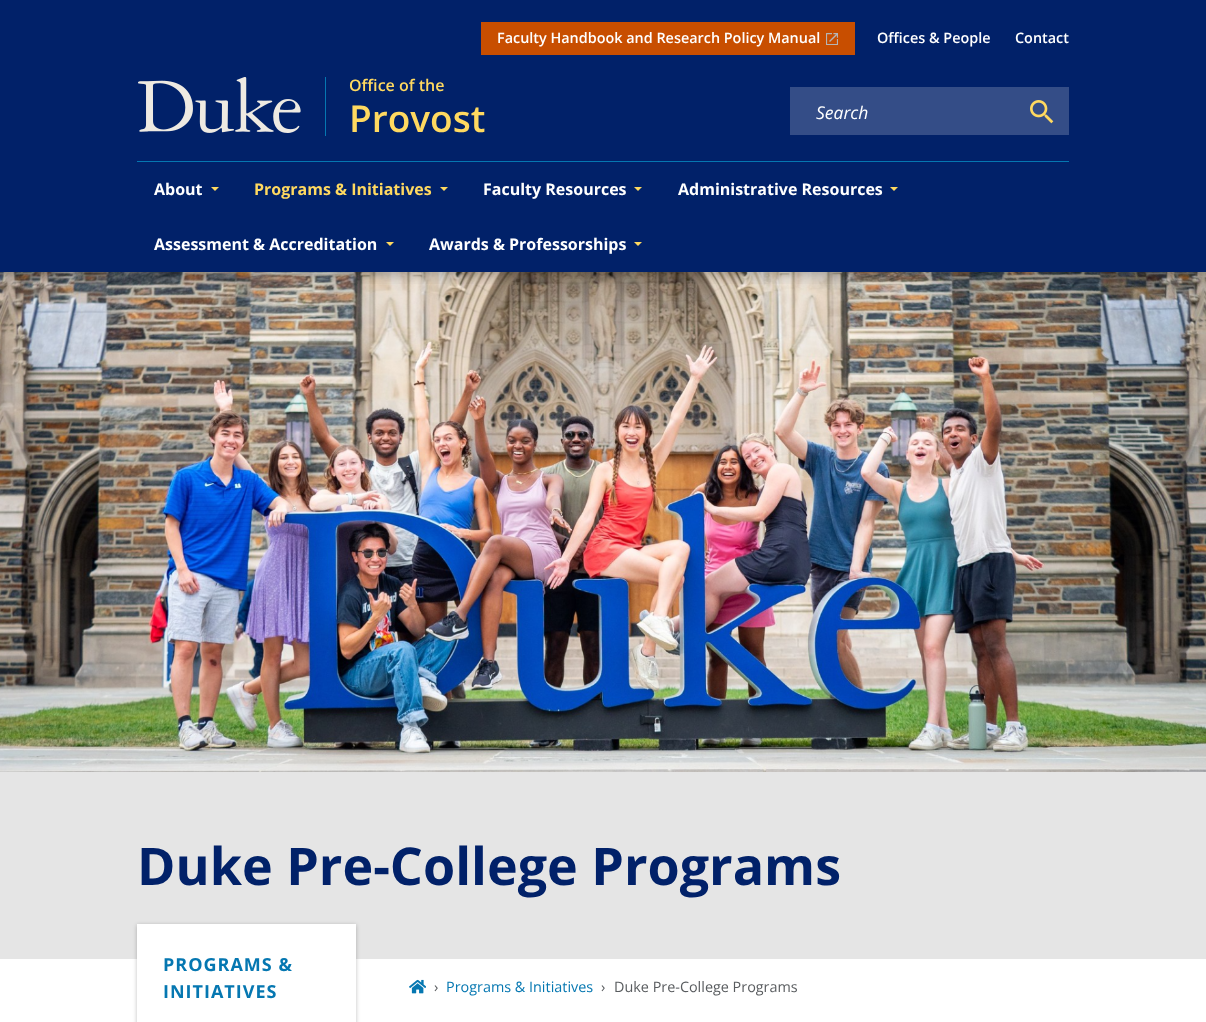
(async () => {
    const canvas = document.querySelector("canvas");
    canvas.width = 1206;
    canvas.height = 1022;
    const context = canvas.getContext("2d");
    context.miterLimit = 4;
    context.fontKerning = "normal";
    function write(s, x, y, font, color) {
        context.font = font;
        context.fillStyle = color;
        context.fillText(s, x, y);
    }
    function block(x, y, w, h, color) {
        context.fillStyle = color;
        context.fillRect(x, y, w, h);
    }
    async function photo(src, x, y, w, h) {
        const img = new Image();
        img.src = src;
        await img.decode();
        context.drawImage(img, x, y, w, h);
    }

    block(0, 0, 1206, 1022, "rgb(255, 255, 255)");
    block(0, 0, 1206, 272, "rgb(1, 33, 105)");
    await photo("media/4.png", 0, 272, 1206, 500);
    context.save();
    context.beginPath();
    context.rect(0, 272, 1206, 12);
    context.clip();
    context.fillStyle = "rgba(0, 0, 0, 0.25)";
    context.filter = "blur(6px)";
    context.beginPath();
    context.rect(0, 4, 1206, 272);
    context.fill();
    context.filter = "none";
    context.restore();
    block(481, 22, 374, 33, "rgb(200, 78, 0)");
    write("Faculty Handbook and Research Policy Manual", 497, 43, "600 14.4px Open Sans", "rgb(255, 255, 255)");
    await photo("media/1.png", 826, 33, 12, 12);
    write("Offices & People", 877, 43, "600 14.4px Open Sans", "rgb(255, 255, 255)");
    write("Contact", 1015, 43, "600 14.4px Open Sans", "rgb(255, 255, 255)");
    await photo("media/2.png", 138, 77, 163, 56);
    block(325, 77, 1, 59, "rgb(5, 119, 177)");
    write("Office of the", 349, 91, "600 16px Open Sans", "rgb(255, 217, 96)");
    write("Provost", 349, 132, "600 37px Open Sans", "rgb(255, 217, 96)");
    block(790, 87, 279, 48, "rgb(52, 77, 135)");
    write("Search", 816, 119, "italic 17.5px Open Sans", "rgb(255, 255, 255)");
    await photo("media/3.png", 1030, 100, 24, 24);
    block(137, 161, 932, 1, "rgb(5, 119, 177)");
    write("About", 154, 195, "bold 16px Open Sans", "rgb(255, 255, 255)");
    context.fillStyle = "rgb(255, 217, 96)";
    context.beginPath();
    context.moveTo(211, 187);
    context.lineTo(219, 187);
    context.lineTo(215, 191);
    context.closePath();
    context.fill();
    write("Programs & Initiatives", 254, 195, "bold 16px Open Sans", "rgb(255, 217, 96)");
    context.beginPath();
    context.moveTo(440, 187);
    context.lineTo(448, 187);
    context.lineTo(444, 191);
    context.closePath();
    context.fill();
    write("Faculty Resources", 483, 195, "bold 16px Open Sans", "rgb(255, 255, 255)");
    context.fillStyle = "rgb(255, 217, 96)";
    context.beginPath();
    context.moveTo(634, 187);
    context.lineTo(642, 187);
    context.lineTo(638, 191);
    context.closePath();
    context.fill();
    write("Administrative Resources", 678, 195, "bold 16px Open Sans", "rgb(255, 255, 255)");
    context.fillStyle = "rgb(255, 217, 96)";
    context.beginPath();
    context.moveTo(890, 187);
    context.lineTo(898, 187);
    context.lineTo(894, 191);
    context.closePath();
    context.fill();
    write("Assessment & Accreditation", 154, 250, "bold 16px Open Sans", "rgb(255, 255, 255)");
    context.fillStyle = "rgb(255, 217, 96)";
    context.beginPath();
    context.moveTo(386, 242);
    context.lineTo(394, 242);
    context.lineTo(390, 246);
    context.closePath();
    context.fill();
    write("Awards & Professorships", 429, 250, "bold 16px Open Sans", "rgb(255, 255, 255)");
    context.fillStyle = "rgb(255, 217, 96)";
    context.beginPath();
    context.moveTo(634, 242);
    context.lineTo(642, 242);
    context.lineTo(638, 246);
    context.closePath();
    context.fill();
    block(0, 772, 1206, 187, "rgb(229, 229, 229)");
    write("Duke Pre-College Programs", 137, 885, "bold 52px Open Sans", "rgb(1, 33, 105)");
    context.fillStyle = "rgba(0, 0, 0, 0.25)";
    context.filter = "blur(2px)";
    context.beginPath();
    context.rect(137, 925, 219, 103);
    context.fill();
    context.filter = "none";
    block(137, 924, 219, 98, "rgb(255, 255, 255)");
    context.letterSpacing = "1px";
    write("PROGRAMS &", 163, 971, "bold 18px Open Sans", "rgb(5, 119, 177)");
    write("INITIATIVES", 163, 998, "bold 18px Open Sans", "rgb(5, 119, 177)");
    await photo("media/5.png", 409, 979, 17, 15);
    context.letterSpacing = "0px";
    write("›", 434, 992, "14.4px Open Sans", "rgb(89, 92, 95)");
    write("Programs & Initiatives", 446, 992, "14.4px Open Sans", "rgb(5, 119, 177)");
    write("›", 601, 992, "14.4px Open Sans", "rgb(89, 92, 95)");
    write("Duke Pre-College Programs", 614, 992, "14.4px Open Sans", "rgb(89, 92, 95)");
})();
